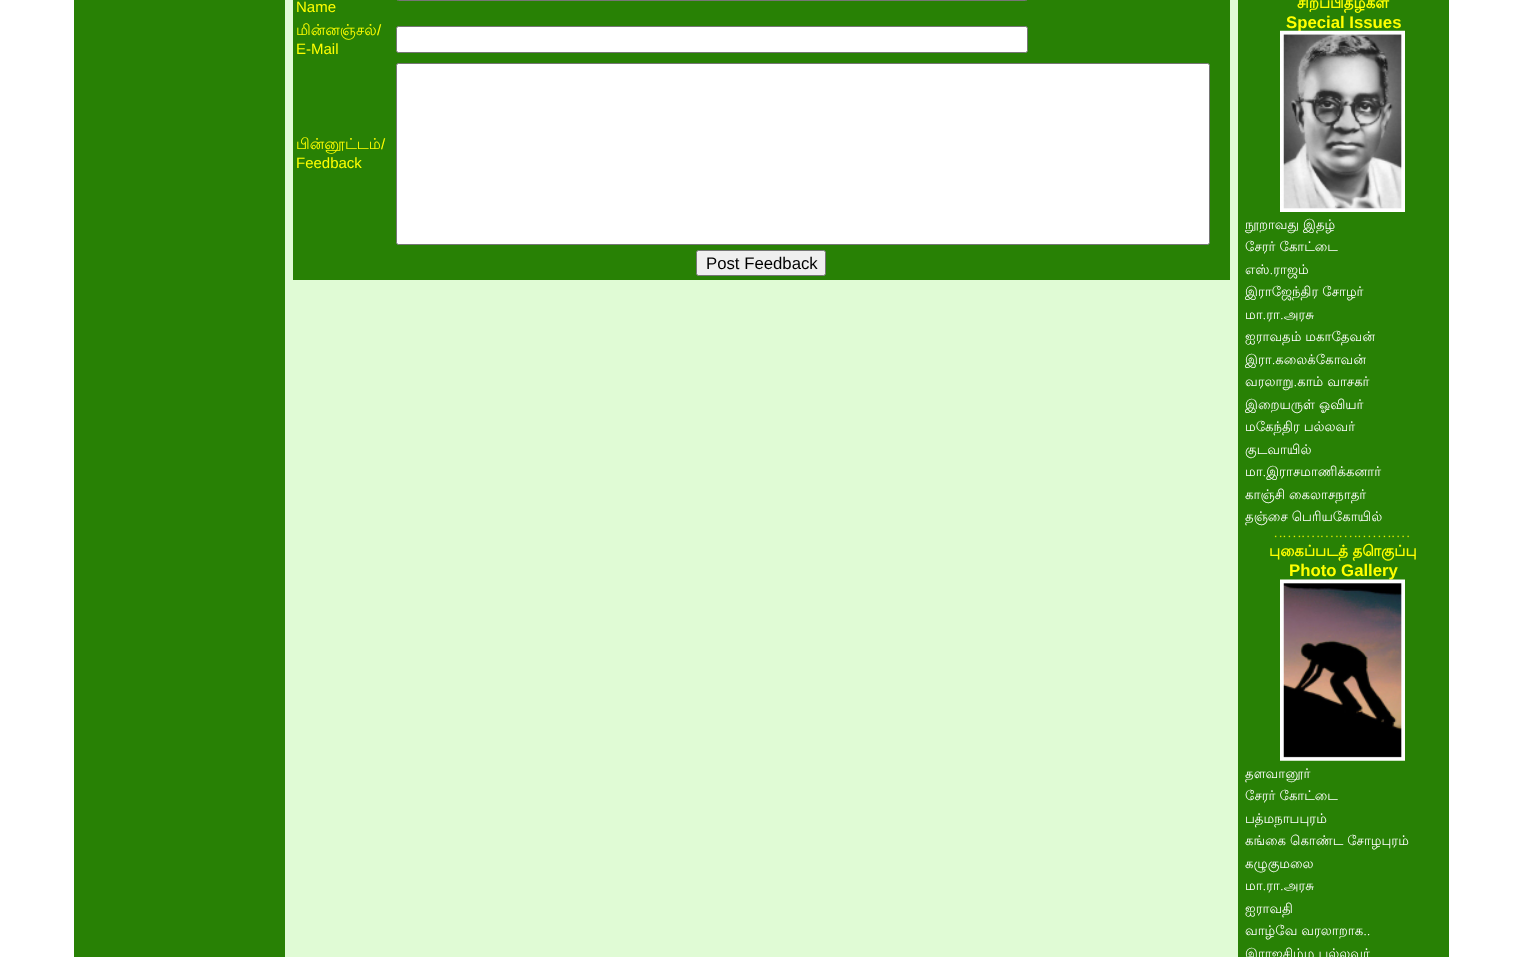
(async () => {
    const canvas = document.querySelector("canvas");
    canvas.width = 1522;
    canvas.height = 957;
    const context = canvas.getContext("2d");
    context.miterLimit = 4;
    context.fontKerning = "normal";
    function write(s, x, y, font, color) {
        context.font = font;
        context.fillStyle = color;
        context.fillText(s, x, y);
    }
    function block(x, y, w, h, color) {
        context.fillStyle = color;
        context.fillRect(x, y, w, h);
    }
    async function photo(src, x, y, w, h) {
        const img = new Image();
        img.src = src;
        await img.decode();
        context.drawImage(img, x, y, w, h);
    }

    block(0, 0, 1522, 957, "rgb(255, 255, 255)");
    block(74, 0, 1375, 957, "rgb(40, 129, 5)");
    block(285, 0, 953, 957, "rgb(224, 251, 213)");
    block(293, 0, 937, 280, "rgb(40, 129, 5)");
    context.beginPath();
    context.roundRect(396.5, -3.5, 631, 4, 2);
    context.strokeStyle = "rgb(118, 118, 118)";
    context.stroke();
    write("Name", 296, 12, "15px Liberation Sans", "rgb(255, 255, 0)");
    write("மின்னஞ்சல்", 296, 35, "15px Lohit Tamil", "rgb(255, 255, 0)");
    write("/", 377, 35, "15px Liberation Sans", "rgb(255, 255, 0)");
    write("E-Mail", 296, 54, "15px Liberation Sans", "rgb(255, 255, 0)");
    context.fillStyle = "rgb(255, 255, 255)";
    context.beginPath();
    context.roundRect(396.5, 26.5, 631, 26, 2);
    context.fill();
    context.stroke();
    write("பின்னூட்டம்", 296, 149, "15px Lohit Tamil", "rgb(255, 255, 0)");
    write("/", 381, 149, "15px Liberation Sans", "rgb(255, 255, 0)");
    write("Feedback", 296, 168, "15px Liberation Sans", "rgb(255, 255, 0)");
    context.fillStyle = "rgb(255, 255, 255)";
    context.beginPath();
    context.roundRect(396.5, 63.5, 813, 181, 2);
    context.fill();
    context.stroke();
    context.fillStyle = "rgb(239, 239, 239)";
    context.beginPath();
    context.roundRect(696.5, 250.5, 129, 25, 2);
    context.fill();
    context.stroke();
    write("Post Feedback", 706, 269, "16.75px Liberation Sans", "rgb(0, 0, 0)");
    write("சிறப்பிதழ்கள்", 1297, 8, "bold 15px Lohit Tamil", "rgb(255, 255, 0)");
    write("Special Issues", 1286, 28, "bold 16.75px Liberation Sans", "rgb(255, 255, 0)");
    await photo("media/1.png", 1280, 30, 125, 182);
    write("நூறாவது இதழ்", 1245, 229, "13.25px Lohit Tamil", "rgb(255, 255, 255)");
    write("சேரர் கோட்டை", 1245, 251, "13.25px Lohit Tamil", "rgb(255, 255, 255)");
    write("எஸ்.ராஜம்", 1245, 274, "13.25px Lohit Tamil", "rgb(255, 255, 255)");
    write("இராஜேந்திர சோழர்", 1245, 296, "13.25px Lohit Tamil", "rgb(255, 255, 255)");
    write("மா.ரா.அரசு", 1245, 319, "13.25px Lohit Tamil", "rgb(255, 255, 255)");
    write("ஐராவதம் மகாதேவன்", 1245, 341, "13.25px Lohit Tamil", "rgb(255, 255, 255)");
    write("இரா.கலைக்கோவன்", 1245, 364, "13.25px Lohit Tamil", "rgb(255, 255, 255)");
    write("வரலாறு.காம் வாசகர்", 1245, 386, "13.25px Lohit Tamil", "rgb(255, 255, 255)");
    write("இறையருள் ஓவியர்", 1245, 409, "13.25px Lohit Tamil", "rgb(255, 255, 255)");
    write("மகேந்திர பல்லவர்", 1245, 431, "13.25px Lohit Tamil", "rgb(255, 255, 255)");
    write("குடவாயில்", 1245, 454, "13.25px Lohit Tamil", "rgb(255, 255, 255)");
    write("மா.இராசமாணிக்கனார்", 1245, 476, "13.25px Lohit Tamil", "rgb(255, 255, 255)");
    write("காஞ்சி கைலாசநாதர்", 1245, 499, "13.25px Lohit Tamil", "rgb(255, 255, 255)");
    write("தஞ்சை பெரியகோயில்", 1245, 521, "13.25px Lohit Tamil", "rgb(255, 255, 255)");
    await photo("media/2.png", 1274, 535, 135, 3);
    write("புகைப்படத் தொகுப்பு", 1269, 556, "bold 15px Lohit Tamil", "rgb(255, 255, 0)");
    write("Photo Gallery", 1289, 576, "bold 16.75px Liberation Sans", "rgb(255, 255, 0)");
    await photo("media/3.png", 1280, 579, 125, 182);
    write("தளவானூர்", 1245, 778, "13.25px Lohit Tamil", "rgb(255, 255, 255)");
    write("சேரர் கோட்டை", 1245, 800, "13.25px Lohit Tamil", "rgb(255, 255, 255)");
    write("பத்மநாபபுரம்", 1245, 823, "13.25px Lohit Tamil", "rgb(255, 255, 255)");
    write("கங்கை கொண்ட சோழபுரம்", 1245, 845, "13.25px Lohit Tamil", "rgb(255, 255, 255)");
    write("கழுகுமலை", 1245, 868, "13.25px Lohit Tamil", "rgb(255, 255, 255)");
    write("மா.ரா.அரசு", 1245, 890, "13.25px Lohit Tamil", "rgb(255, 255, 255)");
    write("ஐராவதி", 1245, 913, "13.25px Lohit Tamil", "rgb(255, 255, 255)");
    write("வாழ்வே வரலாறாக..", 1245, 935, "13.25px Lohit Tamil", "rgb(255, 255, 255)");
    write("இராஜசிம்ம பல்லவர்", 1245, 958, "13.25px Lohit Tamil", "rgb(255, 255, 255)");
})();
